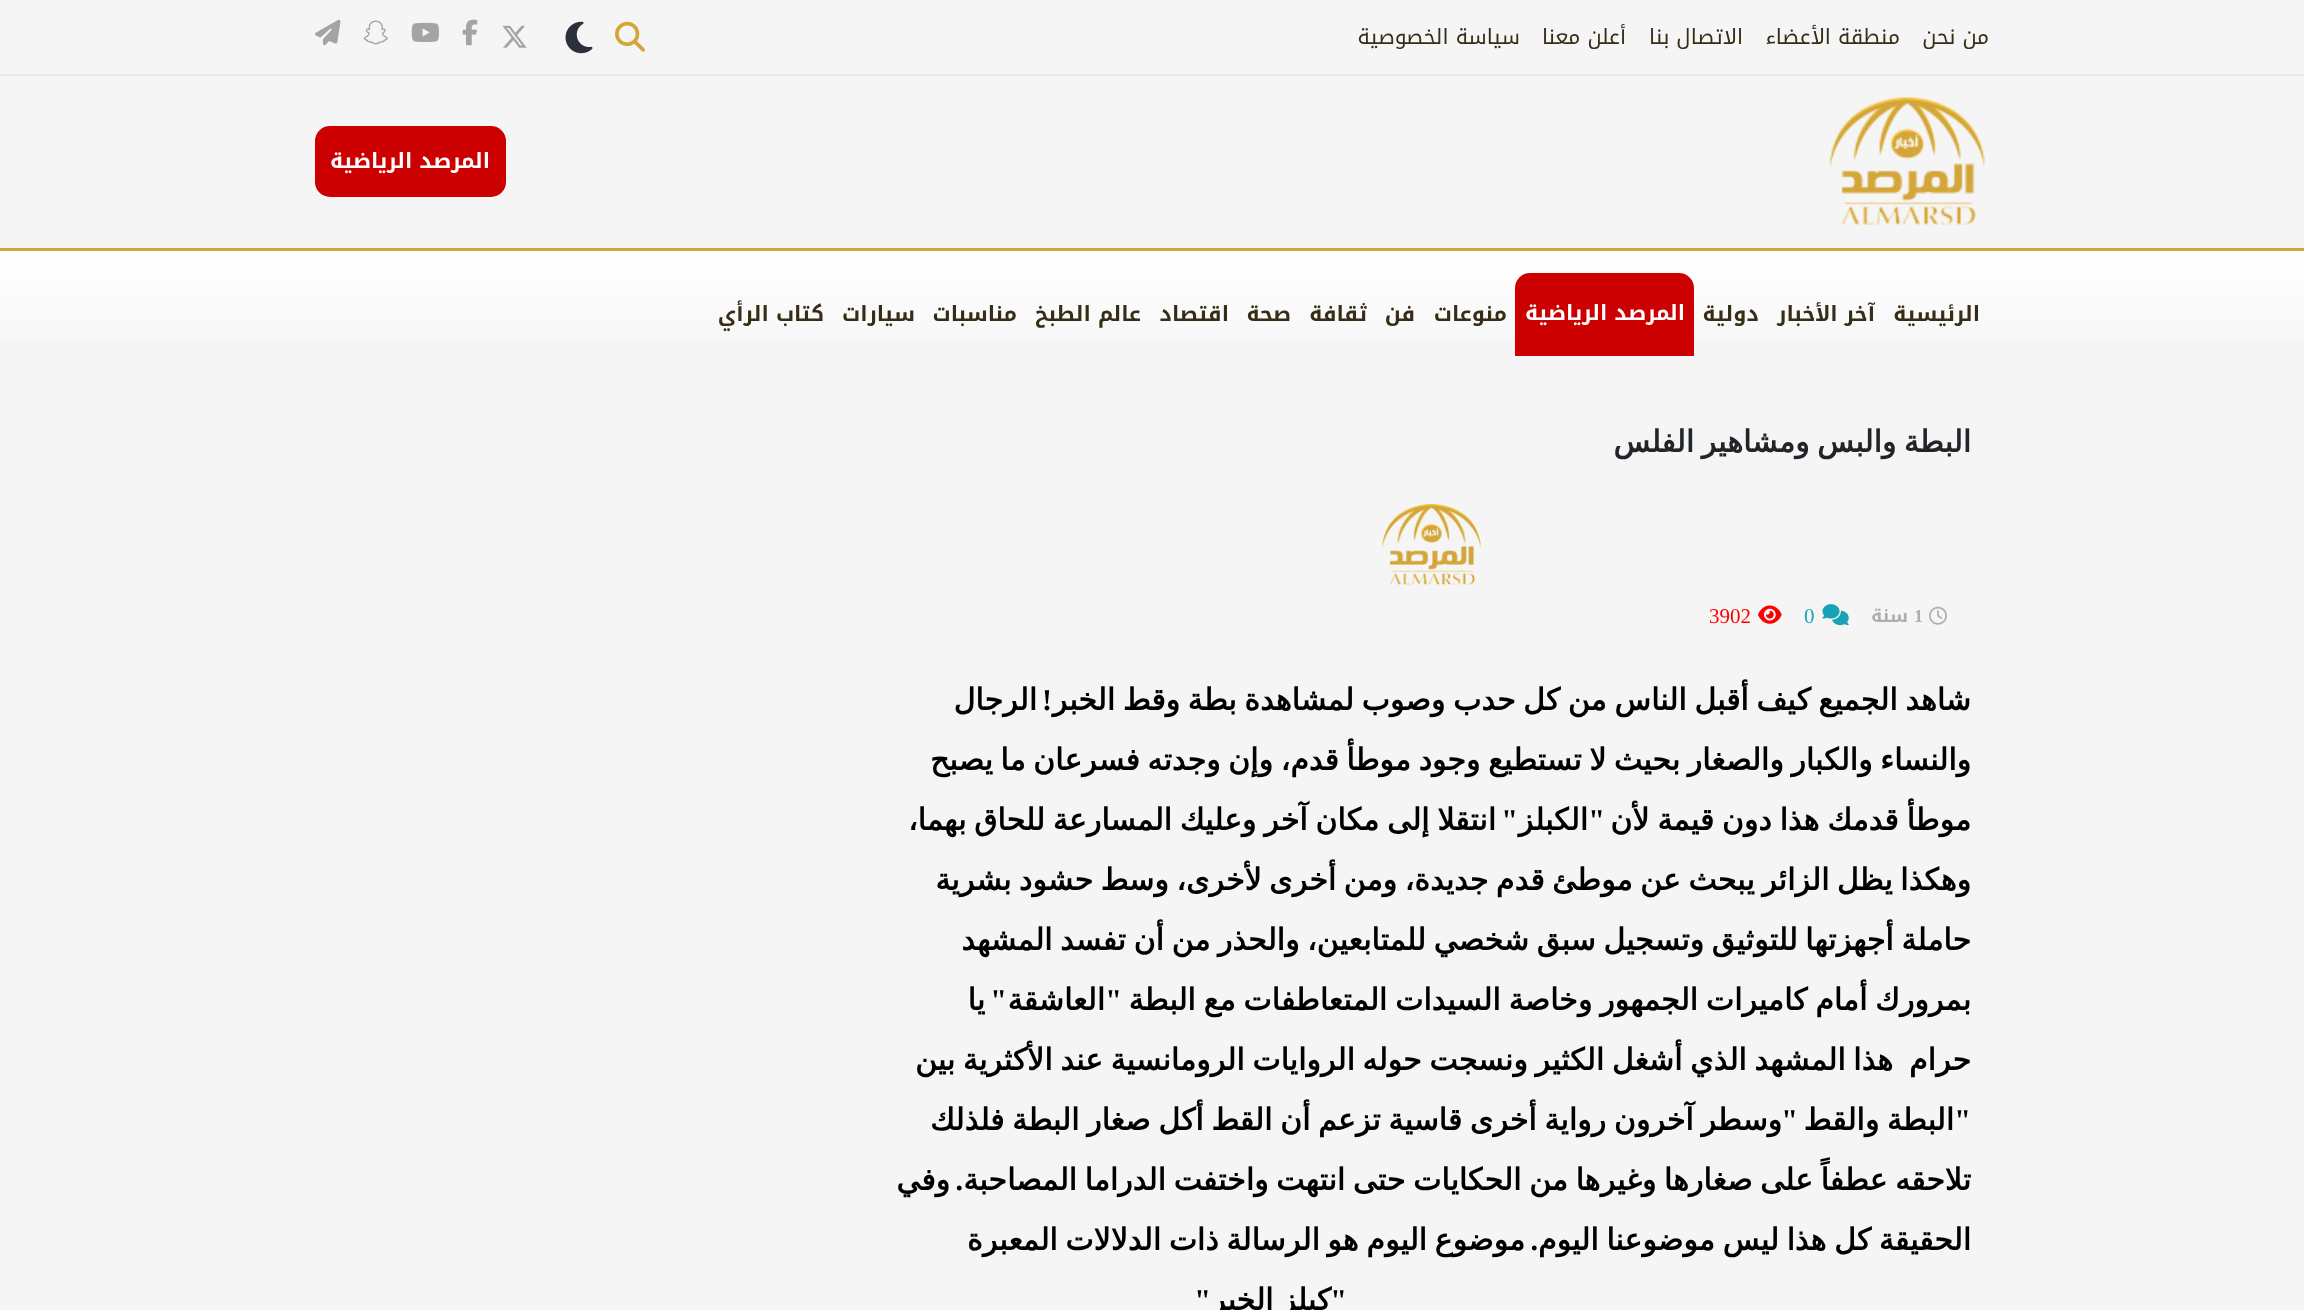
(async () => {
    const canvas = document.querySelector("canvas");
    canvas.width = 2304;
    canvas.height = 1310;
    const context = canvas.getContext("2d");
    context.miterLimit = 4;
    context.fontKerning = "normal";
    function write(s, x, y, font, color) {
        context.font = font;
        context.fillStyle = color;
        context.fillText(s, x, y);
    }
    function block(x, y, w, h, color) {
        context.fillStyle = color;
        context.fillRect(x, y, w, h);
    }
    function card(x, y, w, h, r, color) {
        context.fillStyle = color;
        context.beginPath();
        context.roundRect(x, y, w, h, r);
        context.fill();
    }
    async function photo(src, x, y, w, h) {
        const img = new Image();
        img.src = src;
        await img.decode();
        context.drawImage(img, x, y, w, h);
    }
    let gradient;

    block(0, 0, 2304, 1310, "rgb(245, 245, 245)");
    block(0, 74, 2304, 2, "rgb(234, 234, 234)");
    context.direction = "rtl";
    write("من نحن", 1989, 44, "21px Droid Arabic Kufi", "rgb(54, 45, 22)");
    write("منطقة الأعضاء", 1900, 44, "21px Droid Arabic Kufi", "rgb(54, 45, 22)");
    write("الاتصال بنا", 1743, 44, "21px Droid Arabic Kufi", "rgb(54, 45, 22)");
    write("أعلن معنا", 1626, 44, "21px Droid Arabic Kufi", "rgb(54, 45, 22)");
    write("سياسة الخصوصية", 1520, 44, "21px Droid Arabic Kufi", "rgb(54, 45, 22)");
    await photo("media/1.png", 615, 21, 30, 31);
    await photo("media/2.png", 565, 21, 28, 33);
    await photo("media/3.png", 502, 25, 25, 23);
    await photo("media/4.png", 462, 19, 16, 27);
    await photo("media/5.png", 411, 22, 28, 20);
    await photo("media/6.png", 363, 20, 25, 25);
    await photo("media/7.png", 315, 19, 26, 27);
    await photo("media/8.png", 1829, 97, 156, 128);
    card(315, 126, 191, 71, 15, "rgb(204, 0, 0)");
    write("المرصد الرياضية", 490, 168, "bold 21px Droid Arabic Kufi", "rgb(255, 255, 255)");
    gradient = context.createLinearGradient(1152, 250, 1152, 356);
    gradient.addColorStop(0, "rgb(255, 255, 255)");
    gradient.addColorStop(1, "rgb(246, 246, 246)");
    context.fillStyle = gradient;
    context.fillRect(0, 251, 2304, 87);
    block(0, 248, 2304, 3, "rgb(212, 166, 57)");
    write("الرئيسية", 1980, 321, "bold 21px Droid Arabic Kufi", "rgb(54, 45, 22)");
    write("آخر الأخبار", 1875, 321, "bold 21px Droid Arabic Kufi", "rgb(54, 45, 22)");
    write("دولية", 1759, 321, "bold 21px Droid Arabic Kufi", "rgb(54, 45, 22)");
    context.fillStyle = "rgb(204, 0, 0)";
    context.beginPath();
    context.roundRect(1515, 273, 179, 83, [15, 15, 0, 0]);
    context.fill();
    write("المرصد الرياضية", 1685, 320, "bold 21px Droid Arabic Kufi", "rgb(255, 255, 255)");
    write("منوعات", 1507, 321, "bold 21px Droid Arabic Kufi", "rgb(54, 45, 22)");
    write("فن", 1415, 321, "bold 21px Droid Arabic Kufi", "rgb(54, 45, 22)");
    write("ثقافة", 1367, 321, "bold 21px Droid Arabic Kufi", "rgb(54, 45, 22)");
    write("صحة", 1291, 321, "bold 21px Droid Arabic Kufi", "rgb(54, 45, 22)");
    write("اقتصاد", 1229, 321, "bold 21px Droid Arabic Kufi", "rgb(54, 45, 22)");
    write("عالم الطبخ", 1141, 321, "bold 21px Droid Arabic Kufi", "rgb(54, 45, 22)");
    write("مناسبات", 1017, 321, "bold 21px Droid Arabic Kufi", "rgb(54, 45, 22)");
    write("سيارات", 915, 321, "bold 21px Droid Arabic Kufi", "rgb(54, 45, 22)");
    write("كتاب الرأي", 824, 321, "bold 21px Droid Arabic Kufi", "rgb(54, 45, 22)");
    context.wordSpacing = "-2px";
    write("البطة والبس ومشاهير الفلس", 1971, 452, "bold 30px DejaVu Sans", "rgb(33, 37, 41)");
    await photo("media/9.png", 1382, 504, 99, 81);
    await photo("media/10.png", 1929, 606, 18, 19);
    context.wordSpacing = "0px";
    context.direction = "ltr";
    write("1", 1914, 622, "bold 18px Liberation Serif", "rgb(174, 174, 174)");
    context.direction = "rtl";
    write("سنة", 1908, 622, "bold 18px Droid Arabic Kufi", "rgb(174, 174, 174)");
    await photo("media/11.png", 1822, 604, 27, 22);
    context.direction = "ltr";
    write("0", 1804, 623, "21px Liberation Serif", "rgb(23, 162, 184)");
    await photo("media/12.png", 1758, 605, 24, 19);
    write("3902", 1709, 623, "21px Liberation Serif", "rgb(255, 0, 0)");
    context.save();
    context.beginPath();
    context.rect(891, 669, 1080, 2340);
    context.clip();
    context.wordSpacing = "-1.9px";
    context.direction = "rtl";
    write("شاهد الجميع كيف أقبل الناس من كل حدب وصوب لمشاهدة بطة وقط الخبر", 1971, 710, "bold 30px DejaVu Sans", "rgb(0, 0, 0)");
    context.restore();
    context.direction = "rtl";
    write("!", 1052, 710, "bold 30px Liberation Serif", "rgb(0, 0, 0)");
    write("الرجال", 1037, 710, "bold 30px DejaVu Sans", "rgb(0, 0, 0)");
    context.save();
    context.beginPath();
    context.rect(891, 669, 1080, 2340);
    context.clip();
    context.wordSpacing = "-2px";
    write("والنساء والكبار والصغار بحيث لا تستطيع وجود موطأ قدم، وإن وجدته فسرعان ما يصبح", 1971, 770, "bold 30px DejaVu Sans", "rgb(0, 0, 0)");
    context.wordSpacing = "-1.75px";
    write("موطأ قدمك هذا دون قيمة لأن", 1971, 830, "bold 30px DejaVu Sans", "rgb(0, 0, 0)");
    context.restore();
    write("\"", 1605, 830, "bold 30px Liberation Serif", "rgb(0, 0, 0)");
    write("الكبلز", 1588, 830, "bold 30px DejaVu Sans", "rgb(0, 0, 0)");
    context.wordSpacing = "-1.75px";
    write("انتقلا إلى مكان آخر وعليك المسارعة للحاق بهما،", 1496, 830, "bold 30px DejaVu Sans", "rgb(0, 0, 0)");
    context.wordSpacing = "0px";
    write("\"", 1518, 830, "bold 30px Liberation Serif", "rgb(0, 0, 0)");
    context.save();
    context.beginPath();
    context.rect(891, 669, 1080, 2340);
    context.clip();
    context.wordSpacing = "-2px";
    write("وهكذا يظل الزائر يبحث عن موطئ قدم جديدة، ومن أخرى لأخرى، وسط حشود بشرية", 1971, 890, "bold 30px DejaVu Sans", "rgb(0, 0, 0)");
    write("حاملة أجهزتها للتوثيق وتسجيل سبق شخصي للمتابعين، والحذر من أن تفسد المشهد", 1971, 950, "bold 30px DejaVu Sans", "rgb(0, 0, 0)");
    context.wordSpacing = "-1.75px";
    write("بمرورك أمام كاميرات الجمهور وخاصة السيدات المتعاطفات مع البطة", 1971, 1010, "bold 30px DejaVu Sans", "rgb(0, 0, 0)");
    context.restore();
    write("\"", 1122, 1010, "bold 30px Liberation Serif", "rgb(0, 0, 0)");
    write("العاشقة", 1105, 1010, "bold 30px DejaVu Sans", "rgb(0, 0, 0)");
    write("\"", 1007, 1010, "bold 30px Liberation Serif", "rgb(0, 0, 0)");
    write("يا", 985, 1010, "bold 30px DejaVu Sans", "rgb(0, 0, 0)");
    write("حرام", 1971, 1070, "bold 30px DejaVu Sans", "rgb(0, 0, 0)");
    context.wordSpacing = "-1.9px";
    write("هذا المشهد الذي أشغل الكثير ونسجت حوله الروايات الرومانسية عند الأكثرية بين", 1893, 1070, "bold 30px DejaVu Sans", "rgb(0, 0, 0)");
    write("البطة والقط", 1954, 1130, "bold 30px DejaVu Sans", "rgb(0, 0, 0)");
    write("وسطر آخرون رواية أخرى قاسية تزعم أن القط أكل صغار البطة فلذلك", 1782, 1130, "bold 30px DejaVu Sans", "rgb(0, 0, 0)");
    context.wordSpacing = "0px";
    write("\"", 1971, 1130, "bold 30px Liberation Serif", "rgb(0, 0, 0)");
    write("\"", 1798, 1130, "bold 30px Liberation Serif", "rgb(0, 0, 0)");
    context.save();
    context.beginPath();
    context.rect(891, 669, 1080, 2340);
    context.clip();
    context.wordSpacing = "-1.9px";
    write("تلاحقه عطفاً على صغارها وغيرها من الحكايات حتى انتهت واختفت الدراما المصاحبة", 1971, 1190, "bold 30px DejaVu Sans", "rgb(0, 0, 0)");
    context.restore();
    write(".", 963, 1190, "bold 30px Liberation Serif", "rgb(0, 0, 0)");
    write("وفي", 950, 1190, "bold 30px DejaVu Sans", "rgb(0, 0, 0)");
    context.save();
    context.beginPath();
    context.rect(891, 669, 1080, 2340);
    context.clip();
    context.wordSpacing = "-1.9px";
    write("الحقيقة كل هذا ليس موضوعنا اليوم", 1971, 1250, "bold 30px DejaVu Sans", "rgb(0, 0, 0)");
    context.restore();
    context.wordSpacing = "-1.9px";
    write("موضوع اليوم هو الرسالة ذات الدلالات المعبرة", 1525, 1250, "bold 30px DejaVu Sans", "rgb(0, 0, 0)");
    context.wordSpacing = "0px";
    write(".", 1538, 1250, "bold 30px Liberation Serif", "rgb(0, 0, 0)");
    write("\"", 1347, 1310, "bold 30px Liberation Serif", "rgb(0, 0, 0)");
    context.wordSpacing = "-1.75px";
    write("كبلز الخبر", 1331, 1310, "bold 30px DejaVu Sans", "rgb(0, 0, 0)");
    context.wordSpacing = "0px";
    write("\"", 1211, 1310, "bold 30px Liberation Serif", "rgb(0, 0, 0)");
})();
